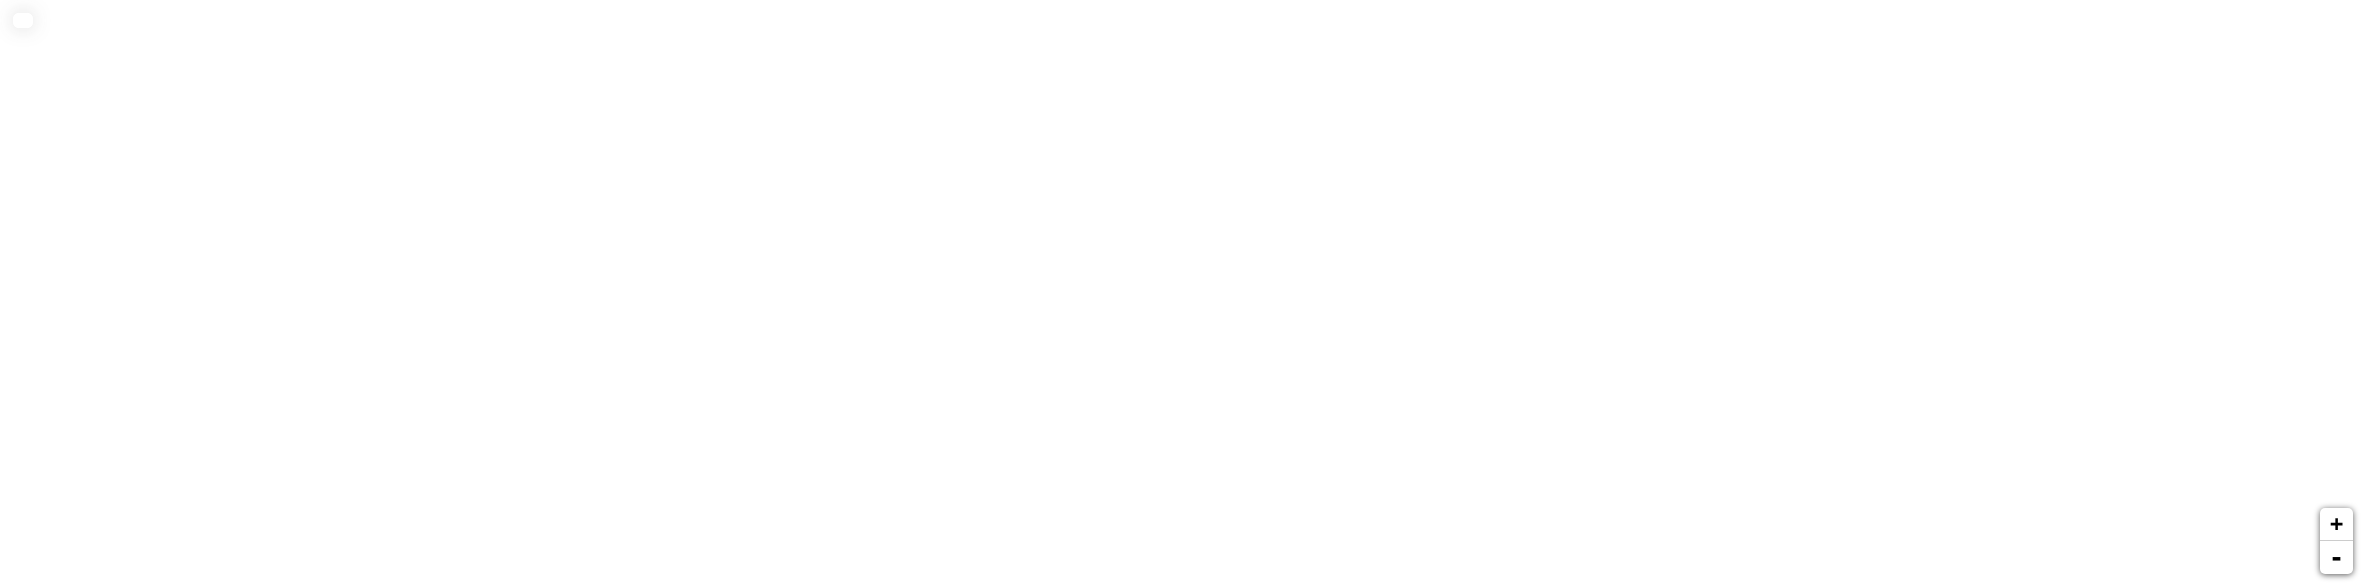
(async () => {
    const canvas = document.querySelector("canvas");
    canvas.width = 2364;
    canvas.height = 586;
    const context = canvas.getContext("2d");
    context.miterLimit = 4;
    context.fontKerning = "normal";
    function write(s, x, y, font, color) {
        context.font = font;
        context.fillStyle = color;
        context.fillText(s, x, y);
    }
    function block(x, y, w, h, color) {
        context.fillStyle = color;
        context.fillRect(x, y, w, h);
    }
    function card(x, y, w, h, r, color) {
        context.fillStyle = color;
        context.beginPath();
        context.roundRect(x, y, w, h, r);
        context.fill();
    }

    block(0, 0, 2364, 586, "rgb(255, 255, 255)");
    context.save();
    context.beginPath();
    context.moveTo(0, 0);
    context.lineTo(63, 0);
    context.lineTo(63, 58);
    context.lineTo(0, 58);
    context.closePath();
    context.moveTo(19, 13);
    context.lineTo(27, 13);
    context.bezierCurveTo(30.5, 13, 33, 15.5, 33, 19);
    context.lineTo(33, 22);
    context.bezierCurveTo(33, 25.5, 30.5, 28, 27, 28);
    context.lineTo(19, 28);
    context.bezierCurveTo(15.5, 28, 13, 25.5, 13, 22);
    context.lineTo(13, 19);
    context.bezierCurveTo(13, 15.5, 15.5, 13, 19, 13);
    context.closePath();
    context.clip("evenodd");
    context.fillStyle = "rgba(51, 51, 51, 0.2)";
    context.filter = "blur(9.5px)";
    context.beginPath();
    context.roundRect(13, 13, 20, 15, 6);
    context.fill();
    context.filter = "none";
    context.restore();
    card(13, 13, 20, 15, 6, "rgba(255, 255, 255, 0.8)");
    context.fillStyle = "rgba(0, 0, 0, 0.65)";
    context.filter = "blur(3px)";
    context.beginPath();
    context.roundRect(2320, 509, 33, 66, 5);
    context.fill();
    context.filter = "none";
    context.fillStyle = "rgb(255, 255, 255)";
    context.beginPath();
    context.roundRect(2320, 508, 33, 33, [5, 5, 0, 0]);
    context.fill();
    block(2320, 540, 33, 1, "rgb(204, 204, 204)");
    write("+", 2330, 531, "bold 22px DejaVu Sans Mono", "rgb(0, 0, 0)");
    context.fillStyle = "rgb(255, 255, 255)";
    context.beginPath();
    context.roundRect(2320, 541, 33, 33, [0, 0, 5, 5]);
    context.fill();
    write("-", 2329, 566, "bold 25px DejaVu Sans Mono", "rgb(0, 0, 0)");
})();
